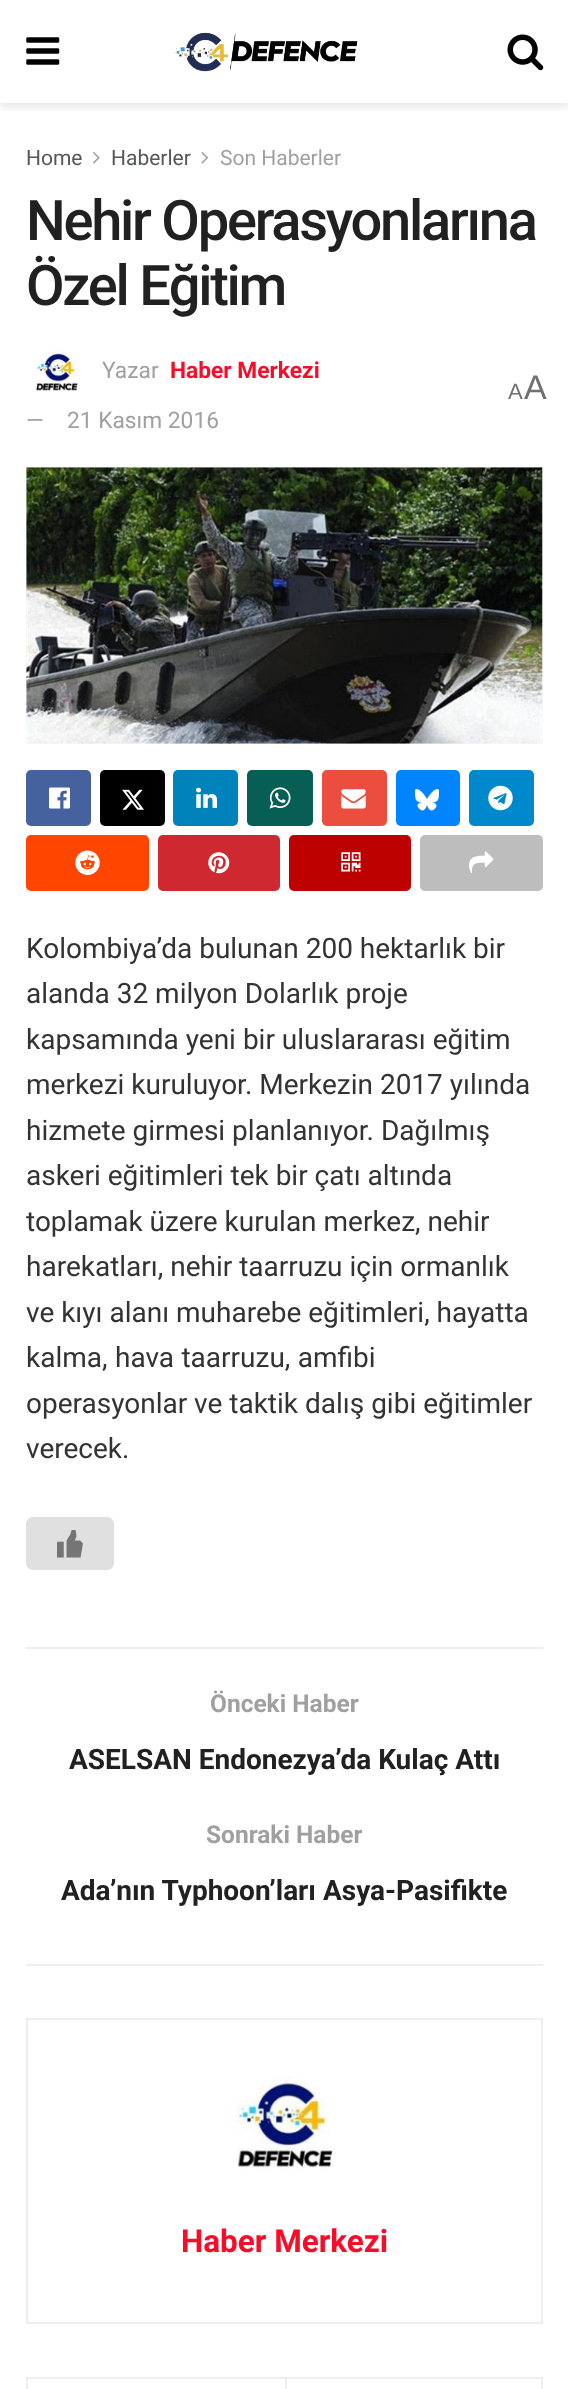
(async () => {
    const canvas = document.querySelector("canvas");
    canvas.width = 568;
    canvas.height = 2389;
    const context = canvas.getContext("2d");
    context.miterLimit = 4;
    context.fontKerning = "normal";
    function write(s, x, y, font, color) {
        context.font = font;
        context.fillStyle = color;
        context.fillText(s, x, y);
    }
    function block(x, y, w, h, color) {
        context.fillStyle = color;
        context.fillRect(x, y, w, h);
    }
    function card(x, y, w, h, r, color) {
        context.fillStyle = color;
        context.beginPath();
        context.roundRect(x, y, w, h, r);
        context.fill();
    }
    async function photo(src, x, y, w, h) {
        const img = new Image();
        img.src = src;
        await img.decode();
        context.drawImage(img, x, y, w, h);
    }

    block(0, 0, 568, 2389, "rgb(255, 255, 255)");
    context.save();
    context.beginPath();
    context.rect(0, 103, 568, 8);
    context.clip();
    context.fillStyle = "rgba(0, 0, 0, 0.1)";
    context.filter = "blur(5px)";
    context.beginPath();
    context.rect(0, 4, 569, 103);
    context.fill();
    context.filter = "none";
    context.restore();
    await photo("media/1.png", 26, 37, 34, 28);
    await photo("media/2.png", 174, 32, 184, 40);
    await photo("media/3.png", 507, 34, 37, 37);
    write("Home", 26, 165, "21px Roboto", "rgb(83, 88, 92)");
    await photo("media/4.png", 93, 152, 7, 12);
    write("Haberler", 111, 165, "21px Roboto", "rgb(83, 88, 92)");
    await photo("media/5.png", 201, 152, 8, 12);
    write("Son Haberler", 220, 165, "21px Roboto", "rgb(160, 160, 160)");
    context.letterSpacing = "-2.25px";
    write("Nehir Operasyonlarına", 26, 240, "500 56px Roboto", "rgb(33, 33, 33)");
    write("Özel Eğitim", 26, 305, "500 56px Roboto", "rgb(33, 33, 33)");
    await photo("media/6.png", 33, 350, 45, 41);
    context.letterSpacing = "0px";
    write("Yazar ", 102, 378, "22.75px Roboto", "rgb(160, 160, 160)");
    write("Haber Merkezi", 170, 378, "bold 22.75px Roboto", "rgb(247, 13, 40)");
    write("—", 26, 428, "22.75px Roboto", "rgb(160, 160, 160)");
    write("21 Kasım 2016", 67, 428, "22.75px Roboto", "rgb(160, 160, 160)");
    write("A", 508, 399, "22px Liberation Sans", "rgb(112, 112, 112)");
    write("A", 524, 399, "34px Liberation Sans", "rgb(112, 112, 112)");
    block(26, 467, 517, 277, "rgb(247, 247, 247)");
    await photo("media/7.png", 26, 467, 517, 277);
    card(26, 770, 65, 56, 5, "rgb(69, 98, 159)");
    await photo("media/8.png", 49, 787, 21, 22);
    card(100, 770, 65, 56, 5, "rgb(0, 0, 0)");
    await photo("media/9.png", 122, 789, 22, 21);
    card(173, 770, 65, 56, 5, "rgb(0, 131, 187)");
    await photo("media/10.png", 196, 787, 21, 21);
    card(247, 770, 66, 56, 5, "rgb(7, 94, 84)");
    await photo("media/11.png", 269, 787, 22, 22);
    card(322, 770, 65, 56, 5, "rgb(235, 77, 63)");
    await photo("media/12.png", 341, 789, 25, 20);
    card(396, 770, 64, 56, 5, "rgb(0, 133, 255)");
    await photo("media/13.png", 415, 789, 24, 22);
    card(469, 770, 65, 56, 5, "rgb(0, 136, 204)");
    await photo("media/14.png", 488, 785, 25, 26);
    card(26, 835, 123, 56, 5, "rgb(255, 69, 0)");
    await photo("media/15.png", 75, 850, 25, 25);
    card(158, 835, 122, 56, 5, "rgb(207, 40, 48)");
    await photo("media/16.png", 208, 852, 22, 22);
    card(289, 835, 122, 56, 5, "rgb(189, 0, 0)");
    await photo("media/17.png", 341, 852, 20, 20);
    card(420, 835, 123, 56, 5, "rgb(189, 189, 189)");
    await photo("media/18.png", 469, 851, 25, 23);
    write("Kolombiya’da bulunan 200 hektarlık bir", 26, 958, "28px Roboto", "rgb(51, 51, 51)");
    write("alanda 32 milyon Dolarlık proje", 26, 1003, "28px Roboto", "rgb(51, 51, 51)");
    write("kapsamında yeni bir uluslararası eğitim", 26, 1049, "28px Roboto", "rgb(51, 51, 51)");
    write("merkezi kuruluyor. Merkezin 2017 yılında", 26, 1094, "28px Roboto", "rgb(51, 51, 51)");
    write("hizmete girmesi planlanıyor. Dağılmış", 26, 1140, "28px Roboto", "rgb(51, 51, 51)");
    write("askeri eğitimleri tek bir çatı altında", 26, 1185, "28px Roboto", "rgb(51, 51, 51)");
    write("toplamak üzere kurulan merkez, nehir", 26, 1231, "28px Roboto", "rgb(51, 51, 51)");
    write("harekatları, nehir taarruzu için ormanlık", 26, 1276, "28px Roboto", "rgb(51, 51, 51)");
    write("ve kıyı alanı muharebe eğitimleri, hayatta", 26, 1322, "28px Roboto", "rgb(51, 51, 51)");
    context.wordSpacing = "0.5px";
    write("kalma, hava taarruzu, amfibi", 26, 1367, "28px Roboto", "rgb(51, 51, 51)");
    context.wordSpacing = "0px";
    write("operasyonlar ve taktik dalış gibi eğitimler", 26, 1413, "28px Roboto", "rgb(51, 51, 51)");
    write("verecek.", 26, 1458, "28px Roboto", "rgb(51, 51, 51)");
    card(26, 1517, 88, 53, 7, "rgb(224, 224, 224)");
    await photo("media/19.png", 57, 1530, 26, 28);
    block(26, 1647, 517, 2, "rgb(238, 238, 238)");
    block(26, 1964, 517, 2, "rgb(238, 238, 238)");
    write("Önceki Haber", 210, 1712, "bold 24.5px Roboto", "rgb(160, 160, 160)");
    write("ASELSAN Endonezya’da Kulaç Attı", 69, 1769, "bold 28px Roboto", "rgb(33, 33, 33)");
    write("Sonraki Haber", 206, 1843, "bold 24.5px Roboto", "rgb(160, 160, 160)");
    write("Ada’nın Typhoon’ları Asya-Pasifikte", 61, 1900, "bold 28px Roboto", "rgb(33, 33, 33)");
    context.strokeStyle = "rgb(238, 238, 238)";
    context.lineWidth = 2;
    context.strokeRect(27, 2019, 515, 304);
    await photo("media/20.png", 230, 2075, 105, 94);
    write("Haber Merkezi", 181, 2252, "bold 31.5px Roboto", "rgb(247, 13, 40)");
    block(26, 2377, 517, 2, "rgb(238, 238, 238)");
    context.beginPath();
    context.moveTo(26, 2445);
    context.lineTo(26, 2376);
    context.lineTo(28, 2378);
    context.lineTo(28, 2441);
    context.closePath();
    context.fill();
    block(541, 2377, 2, 12, "rgb(238, 238, 238)");
    block(285, 2377, 2, 12, "rgb(238, 238, 238)");
})();
